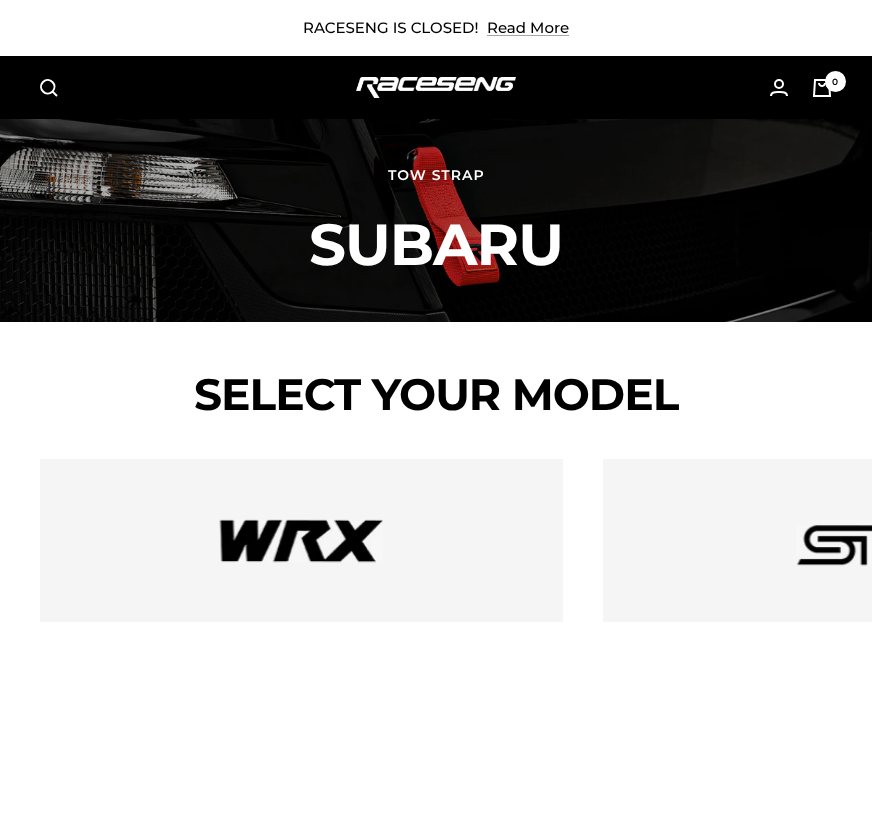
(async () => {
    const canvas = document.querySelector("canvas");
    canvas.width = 872;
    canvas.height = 830;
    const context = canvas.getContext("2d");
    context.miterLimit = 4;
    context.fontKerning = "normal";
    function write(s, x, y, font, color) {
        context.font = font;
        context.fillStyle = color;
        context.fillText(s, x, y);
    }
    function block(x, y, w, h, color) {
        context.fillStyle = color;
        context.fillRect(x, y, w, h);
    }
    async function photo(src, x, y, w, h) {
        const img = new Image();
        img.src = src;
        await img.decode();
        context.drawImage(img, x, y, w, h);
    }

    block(0, 0, 872, 830, "rgb(255, 255, 255)");
    write("RACESENG IS CLOSED!", 303, 33, "500 15px Montserrat", "rgb(0, 0, 0)");
    write("Read More", 487, 33, "500 15px Montserrat", "rgb(0, 0, 0)");
    block(487, 35, 82, 1, "rgb(166, 166, 166)");
    block(0, 56, 872, 63, "rgb(0, 0, 0)");
    context.beginPath();
    context.moveTo(52.5, 91.5);
    context.bezierCurveTo(58.5, 85, 49.5, 76, 43, 82);
    context.bezierCurveTo(37, 88.5, 46, 97.5, 52.5, 91.5);
    context.closePath();
    context.moveTo(52.5, 91.5);
    context.lineTo(57, 96);
    context.strokeStyle = "rgb(255, 255, 255)";
    context.lineWidth = 2;
    context.stroke();
    await photo("media/1.png", 356, 77, 160, 21);
    context.beginPath();
    context.arc(779, 84, 4, 0, Math.PI * 2);
    context.stroke();
    context.beginPath();
    context.moveTo(771, 96);
    context.bezierCurveTo(771, 91.5, 776, 92, 779, 92);
    context.bezierCurveTo(782, 92, 787, 91.5, 787, 96);
    context.stroke();
    await photo("media/2.png", 812, 79, 20, 18);
    context.fillStyle = "rgb(255, 255, 255)";
    context.beginPath();
    context.arc(835.5, 81.5, 10.5, 0, Math.PI * 2);
    context.fill();
    write("0", 832, 85, "600 9px Montserrat", "rgb(0, 0, 0)");
    await photo("media/3.png", 0, 119, 872, 203);
    context.letterSpacing = "1px";
    write("TOW STRAP", 388, 180, "600 14px Montserrat", "rgb(255, 255, 255)");
    context.letterSpacing = "-1px";
    write("SUBARU", 309, 265, "bold 58px Montserrat", "rgb(255, 255, 255)");
    write("SELECT YOUR MODEL", 194, 410, "bold 44px Montserrat", "rgb(0, 0, 0)");
    block(40, 459, 523, 163, "rgb(245, 245, 245)");
    await photo("media/4.png", 219, 519, 164, 44);
    block(603, 459, 269, 163, "rgb(245, 245, 245)");
    await photo("media/5.png", 796, 525, 76, 41);
})();
